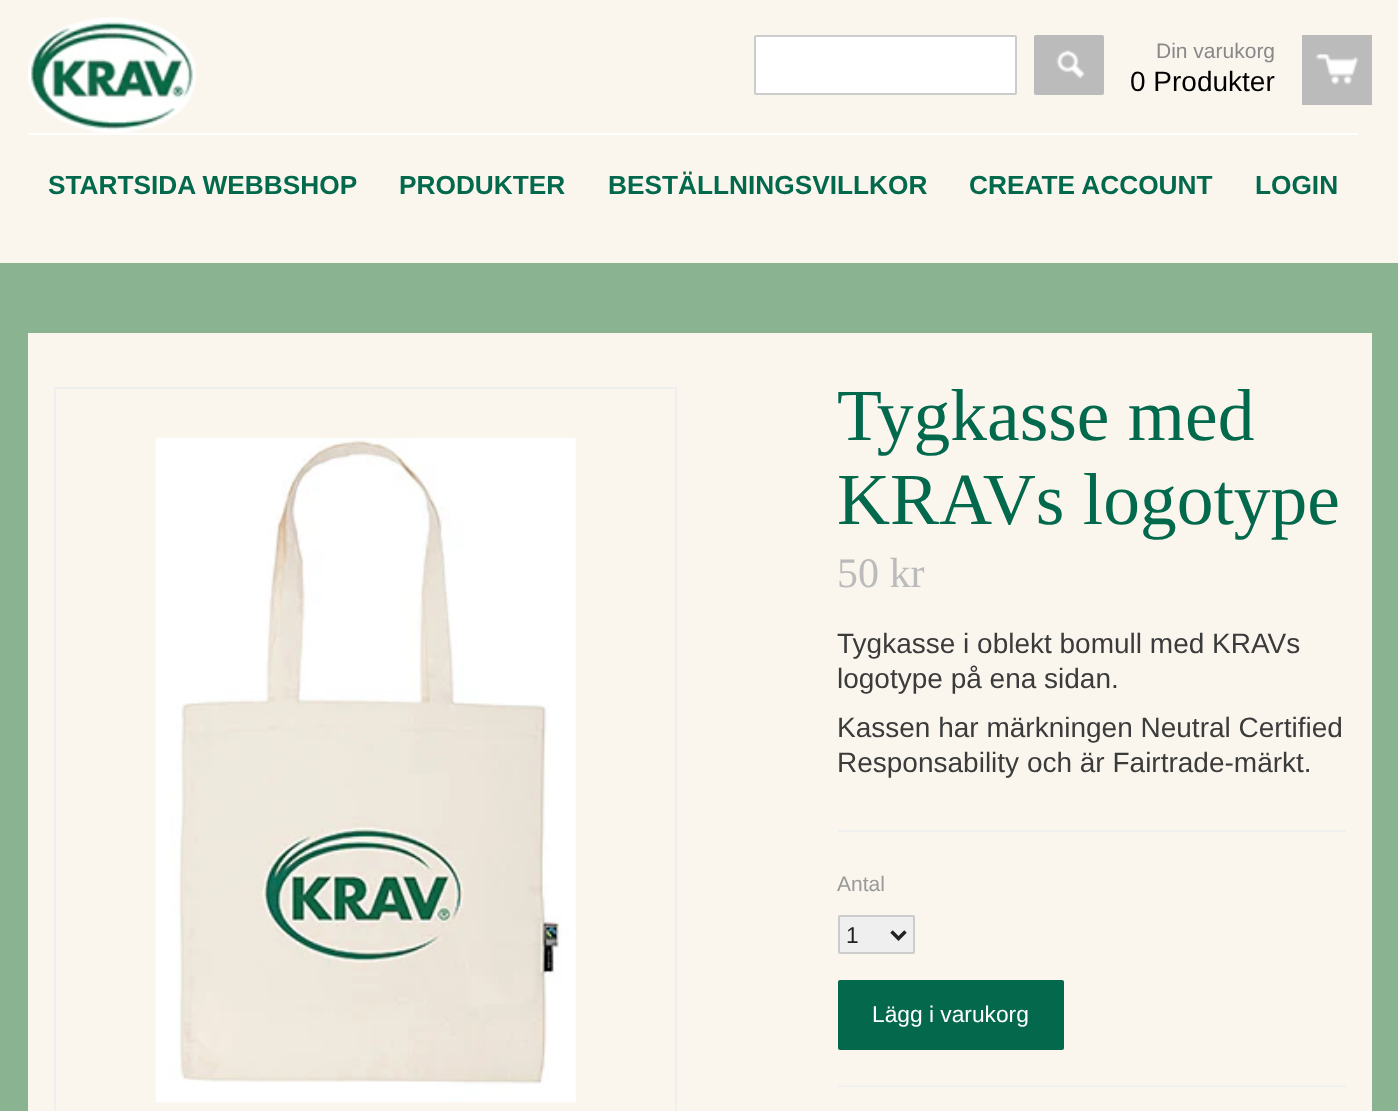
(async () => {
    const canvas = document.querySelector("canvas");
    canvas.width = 1398;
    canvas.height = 1111;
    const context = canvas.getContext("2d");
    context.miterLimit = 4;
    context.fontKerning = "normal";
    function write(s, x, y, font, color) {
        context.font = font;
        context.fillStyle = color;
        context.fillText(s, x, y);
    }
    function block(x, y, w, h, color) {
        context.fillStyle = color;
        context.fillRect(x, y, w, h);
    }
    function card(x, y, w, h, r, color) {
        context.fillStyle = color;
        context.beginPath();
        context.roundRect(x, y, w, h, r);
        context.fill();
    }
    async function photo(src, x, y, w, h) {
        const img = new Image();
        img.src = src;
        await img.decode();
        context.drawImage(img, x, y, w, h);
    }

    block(0, 0, 1398, 1111, "rgb(137, 179, 145)");
    block(0, 0, 1398, 263, "rgb(250, 246, 238)");
    await photo("media/1.png", 28, 17, 168, 116);
    context.fillStyle = "rgb(255, 255, 255)";
    context.beginPath();
    context.roundRect(755, 36, 261, 58, 1);
    context.fill();
    context.strokeStyle = "rgb(204, 204, 204)";
    context.lineWidth = 2;
    context.stroke();
    card(1034, 35, 70, 60, 2, "rgb(187, 187, 187)");
    await photo("media/2.png", 1056, 50, 29, 29);
    write("Din varukorg", 1156, 58, "21px Liberation Sans", "rgb(136, 136, 136)");
    write("0 Produkter", 1130, 91, "28px Liberation Sans", "rgb(0, 0, 0)");
    block(1302, 35, 70, 70, "rgb(187, 187, 187)");
    await photo("media/3.png", 1315, 54, 44, 31);
    block(28, 133, 1330, 2, "rgb(255, 255, 255)");
    write("STARTSIDA WEBBSHOP", 48, 194, "bold 26.25px Liberation Sans", "rgb(3, 105, 76)");
    write("PRODUKTER", 399, 194, "bold 26.25px Liberation Sans", "rgb(3, 105, 76)");
    write("BESTÄLLNINGSVILLKOR", 608, 194, "bold 26.25px Liberation Sans", "rgb(3, 105, 76)");
    write("CREATE ACCOUNT", 969, 194, "bold 26.25px Liberation Sans", "rgb(3, 105, 76)");
    write("LOGIN", 1255, 194, "bold 26.25px Liberation Sans", "rgb(3, 105, 76)");
    block(28, 333, 1344, 778, "rgb(250, 246, 238)");
    context.strokeStyle = "rgb(239, 239, 239)";
    context.strokeRect(55, 388, 621, 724);
    await photo("media/4.png", 155, 437, 421, 666);
    write("Tygkasse med", 837, 440, "73.5px Liberation Serif", "rgb(3, 105, 76)");
    write("KRAVs logotype", 837, 524, "73.5px Liberation Serif", "rgb(3, 105, 76)");
    write("50 kr", 837, 587, "42px Liberation Serif", "rgb(187, 187, 187)");
    block(838, 830, 508, 2, "rgb(240, 240, 240)");
    write("Tygkasse i oblekt bomull med KRAVs", 837, 653, "28px Liberation Sans", "rgb(59, 59, 59)");
    write("logotype på ena sidan.", 837, 688, "28px Liberation Sans", "rgb(59, 59, 59)");
    write("Kassen har märkningen Neutral Certified", 837, 737, "28px Liberation Sans", "rgb(59, 59, 59)");
    write("Responsability och är Fairtrade-märkt.", 837, 772, "28px Liberation Sans", "rgb(59, 59, 59)");
    write("Antal", 837, 891, "21px Liberation Sans", "rgb(153, 153, 153)");
    context.fillStyle = "rgb(239, 239, 239)";
    context.beginPath();
    context.roundRect(839, 916, 75, 37, 1);
    context.fill();
    context.strokeStyle = "rgb(204, 204, 204)";
    context.stroke();
    context.beginPath();
    context.moveTo(891.5, 931.5);
    context.lineTo(898.5, 938.5);
    context.lineTo(905.5, 931.5);
    context.strokeStyle = "rgb(34, 34, 34)";
    context.lineWidth = 3.5;
    context.stroke();
    write("1", 846, 943, "22.75px Liberation Sans", "rgb(34, 34, 34)");
    card(838, 980, 226, 70, 2, "rgb(4, 105, 76)");
    write("Lägg i varukorg", 872, 1022, "22.75px Liberation Sans", "rgb(255, 255, 255)");
    block(838, 1085, 508, 2, "rgb(240, 240, 240)");
})();
